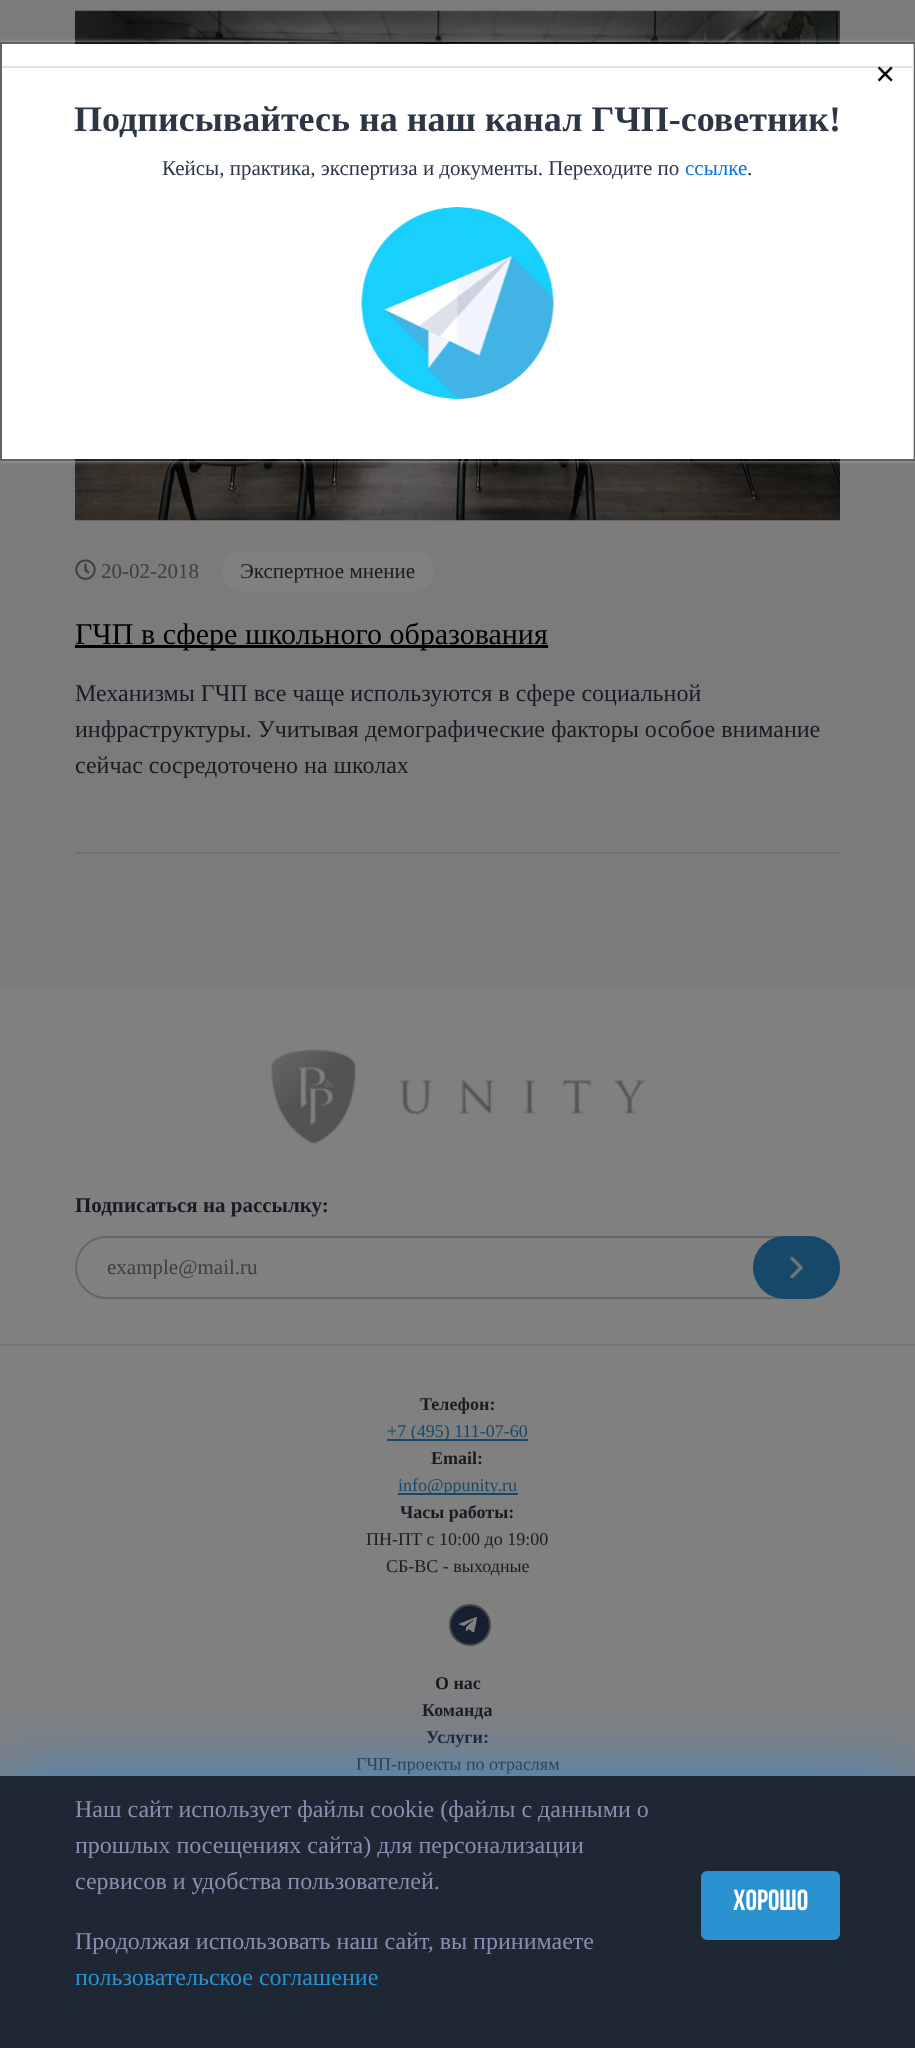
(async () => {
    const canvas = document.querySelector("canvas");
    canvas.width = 915;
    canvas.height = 2048;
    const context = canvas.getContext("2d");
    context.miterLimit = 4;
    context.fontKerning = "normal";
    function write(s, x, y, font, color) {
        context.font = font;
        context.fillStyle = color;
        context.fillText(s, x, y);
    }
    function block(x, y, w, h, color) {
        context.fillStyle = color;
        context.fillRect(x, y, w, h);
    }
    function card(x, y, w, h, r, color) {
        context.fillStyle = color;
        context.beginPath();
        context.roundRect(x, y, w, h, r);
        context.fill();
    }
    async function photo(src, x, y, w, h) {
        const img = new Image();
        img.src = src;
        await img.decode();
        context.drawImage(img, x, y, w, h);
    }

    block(0, 0, 915, 2048, "rgb(123, 123, 123)");
    await photo("media/2.png", 75, 10, 765, 511);
    context.save();
    context.beginPath();
    context.moveTo(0, 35);
    context.lineTo(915, 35);
    context.lineTo(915, 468);
    context.lineTo(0, 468);
    context.closePath();
    context.moveTo(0, 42);
    context.lineTo(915, 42);
    context.lineTo(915, 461);
    context.lineTo(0, 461);
    context.closePath();
    context.clip("evenodd");
    context.fillStyle = "rgb(170, 170, 170)";
    context.filter = "blur(2px)";
    context.beginPath();
    context.rect(0, 42, 915, 419);
    context.fill();
    context.filter = "none";
    context.restore();
    block(2, 44, 912, 415, "rgb(255, 255, 255)");
    context.strokeStyle = "rgba(0, 0, 0, 0.2)";
    context.lineWidth = 2;
    context.strokeRect(1, 43, 913, 417);
    block(2, 66, 912, 2, "rgb(222, 226, 230)");
    write("×", 875, 86, "bold 36px Liberation Serif", "rgb(0, 0, 0)");
    write("Подписывайтесь на наш канал ГЧП-советник!", 74, 131, "bold 36px Liberation Serif", "rgb(45, 54, 69)");
    write("Кейсы, практика, экспертиза и документы. Переходите по", 162, 175, "21px Liberation Serif", "rgb(45, 54, 69)");
    write("ссылке", 685, 175, "21px Liberation Serif", "rgb(2, 117, 216)");
    write(".", 747, 175, "21px Liberation Serif", "rgb(45, 54, 69)");
    await photo("media/1.png", 361, 207, 193, 192);
    await photo("media/3.png", 75, 559, 21, 21);
    write("20-02-2018", 101, 578, "21px Liberation Serif", "rgb(62, 62, 62)");
    card(222, 551, 212, 40, 20, "rgb(128, 128, 128)");
    write("Экспертное мнение", 240, 578, "21px Liberation Serif", "rgb(23, 27, 35)");
    block(75, 645, 473, 3, "rgb(0, 0, 0)");
    write("ГЧП в сфере школьного образования", 75, 644, "30px Liberation Serif", "rgb(0, 0, 0)");
    write("Механизмы ГЧП все чаще используются в сфере социальной", 75, 701, "24px Liberation Serif", "rgb(23, 27, 35)");
    write("инфраструктуры. Учитывая демографические факторы особое внимание", 75, 737, "24px Liberation Serif", "rgb(23, 27, 35)");
    write("сейчас сосредоточено на школах", 75, 773, "24px Liberation Serif", "rgb(23, 27, 35)");
    block(75, 852, 765, 2, "rgb(111, 112, 113)");
    block(0, 989, 915, 787, "rgb(128, 128, 128)");
    await photo("media/4.png", 271, 1049, 374, 95);
    write("Подписаться на рассылку:", 75, 1212, "bold 21px Liberation Serif", "rgb(23, 27, 35)");
    context.beginPath();
    context.roundRect(76, 1237, 763, 61, 30.5);
    context.strokeStyle = "rgb(102, 102, 102)";
    context.stroke();
    write("example@mail.ru", 107, 1274, "21px Liberation Serif", "rgb(62, 62, 62)");
    card(753, 1236, 87, 63, 31.5, "rgb(22, 73, 105)");
    await photo("media/5.png", 790, 1257, 13, 21);
    block(0, 1344, 915, 2, "rgb(116, 116, 117)");
    write("Телефон:", 420, 1410, "bold 18px Liberation Serif", "rgb(23, 27, 35)");
    block(387, 1439, 141, 2, "rgb(22, 73, 105)");
    write("+7 (495) 111-07-60", 387, 1437, "18px Liberation Serif", "rgb(22, 73, 105)");
    write("Email:", 431, 1464, "bold 18px Liberation Serif", "rgb(23, 27, 35)");
    block(398, 1493, 120, 2, "rgb(22, 73, 105)");
    write("info@ppunity.ru", 398, 1491, "18px Liberation Serif", "rgb(22, 73, 105)");
    write("Часы работы:", 400, 1518, "bold 18px Liberation Serif", "rgb(23, 27, 35)");
    write("ПН-ПТ с 10:00 до 19:00", 366, 1545, "18px Liberation Serif", "rgb(23, 27, 35)");
    write("СБ-ВС - выходные", 386, 1572, "18px Liberation Serif", "rgb(23, 27, 35)");
    context.fillStyle = "rgb(22, 32, 49)";
    context.beginPath();
    context.arc(470, 1625, 20, 0, Math.PI * 2);
    context.fill();
    context.strokeStyle = "rgb(69, 71, 75)";
    context.stroke();
    await photo("media/6.png", 459, 1617, 18, 15);
    write("О нас", 435, 1689, "bold 18px Liberation Serif", "rgb(23, 27, 35)");
    write("Команда", 422, 1716, "bold 18px Liberation Serif", "rgb(23, 27, 35)");
    write("Услуги:", 426, 1743, "bold 18px Liberation Serif", "rgb(23, 27, 35)");
    write("ГЧП-проекты по отраслям", 356, 1770, "18px Liberation Serif", "rgb(23, 27, 35)");
    context.fillStyle = "rgb(64, 133, 197)";
    context.filter = "blur(37.5px)";
    context.beginPath();
    context.rect(0, 1776, 915, 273);
    context.fill();
    context.filter = "none";
    block(0, 1776, 915, 272, "rgb(31, 39, 52)");
    write("Наш сайт использует файлы cookie (файлы с данными о", 75, 1817, "24px Liberation Serif", "rgb(140, 142, 177)");
    write("прошлых посещениях сайта) для персонализации", 75, 1853, "24px Liberation Serif", "rgb(140, 142, 177)");
    write("сервисов и удобства пользователей.", 75, 1889, "24px Liberation Serif", "rgb(140, 142, 177)");
    write("Продолжая использовать наш сайт, вы принимаете", 75, 1949, "24px Liberation Serif", "rgb(140, 142, 177)");
    write("пользовательское соглашение", 75, 1985, "24px Liberation Serif", "rgb(43, 146, 209)");
    context.beginPath();
    context.roundRect(702, 1872, 137, 67, 5);
    context.fill();
    context.strokeStyle = "rgb(43, 146, 209)";
    context.stroke();
    write("Хорошо", 733, 1910, "bold 29px Bebas Neue", "rgb(255, 255, 255)");
})();
